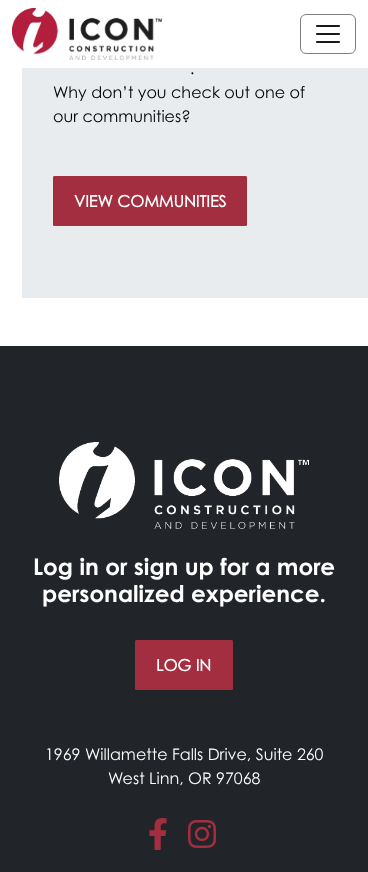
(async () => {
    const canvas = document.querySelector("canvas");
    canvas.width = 368;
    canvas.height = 872;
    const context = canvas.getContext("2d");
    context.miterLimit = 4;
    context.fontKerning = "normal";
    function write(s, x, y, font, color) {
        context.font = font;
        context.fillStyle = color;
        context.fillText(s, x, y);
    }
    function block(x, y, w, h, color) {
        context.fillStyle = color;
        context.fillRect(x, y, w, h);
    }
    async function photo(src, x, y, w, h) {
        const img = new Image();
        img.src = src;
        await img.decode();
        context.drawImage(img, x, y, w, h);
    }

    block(0, 0, 368, 872, "rgb(255, 255, 255)");
    await photo("media/1.png", 12, 8, 150, 52);
    context.beginPath();
    context.roundRect(300.5, 14.5, 55, 39, 5.5);
    context.strokeStyle = "rgb(128, 128, 128)";
    context.stroke();
    await photo("media/2.png", 316, 25, 24, 18);
    block(22, 68, 346, 230, "rgb(233, 236, 239)");
    write(".", 190, 74, "16px Century Gothic", "rgb(0, 0, 0)");
    write("Why don’t you check out one of", 53, 98, "16px Century Gothic", "rgb(0, 0, 0)");
    write("our communities?", 53, 122, "16px Century Gothic", "rgb(0, 0, 0)");
    context.fillStyle = "rgb(163, 46, 63)";
    context.beginPath();
    context.roundRect(53.5, 176.5, 193, 49, 0.5);
    context.fill();
    context.strokeStyle = "rgb(163, 46, 63)";
    context.stroke();
    write("VIEW COMMUNITIES", 74, 207, "bold 16px 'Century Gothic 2'", "rgb(255, 255, 255)");
    block(0, 346, 368, 526, "rgb(33, 37, 41)");
    await photo("media/3.png", 59, 442, 250, 87);
    write("Log in or sign up for a more", 33, 575, "bold 23px Century Gothic", "rgb(255, 255, 255)");
    write("personalized experience.", 42, 602, "bold 23px Century Gothic", "rgb(255, 255, 255)");
    context.fillStyle = "rgb(163, 46, 63)";
    context.beginPath();
    context.roundRect(135.5, 640.5, 97, 49, 0.5);
    context.fill();
    context.stroke();
    write("LOG IN", 156, 671, "bold 16px 'Century Gothic 2'", "rgb(255, 255, 255)");
    write("1969 Willamette Falls Drive, Suite 260", 45, 760, "16px Century Gothic", "rgb(255, 255, 255)");
    write("West Linn, OR 97068", 108, 784, "16px Century Gothic", "rgb(255, 255, 255)");
    await photo("media/4.png", 149, 818, 18, 32);
    await photo("media/5.png", 188, 820, 28, 28);
})();
